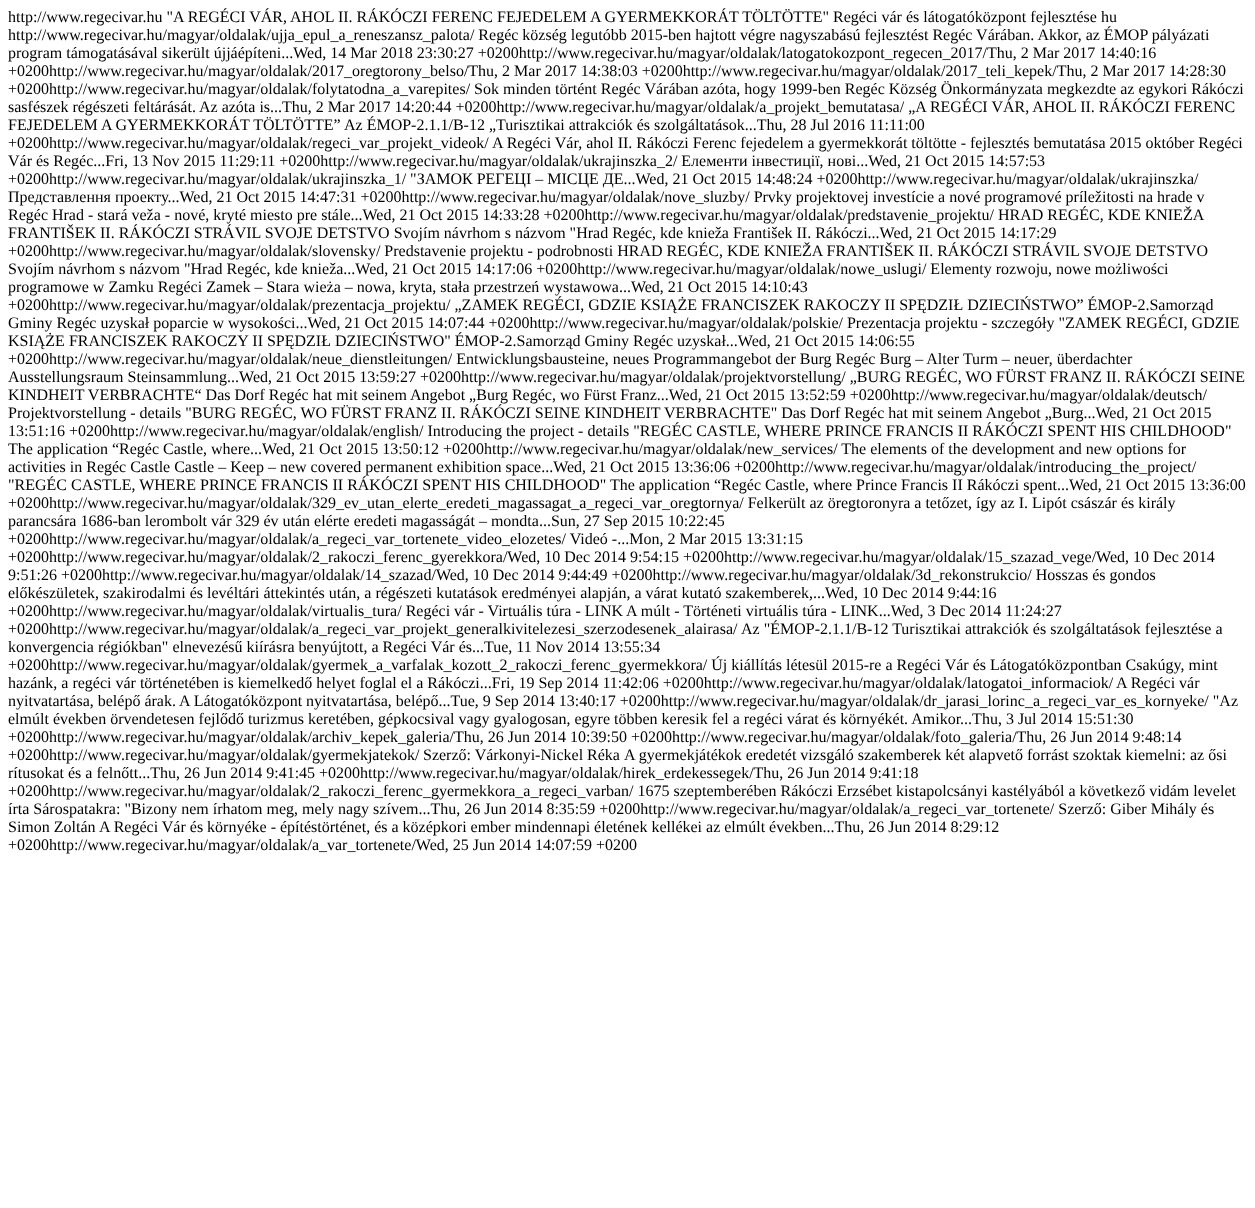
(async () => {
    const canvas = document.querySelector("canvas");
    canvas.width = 1255;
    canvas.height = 1208;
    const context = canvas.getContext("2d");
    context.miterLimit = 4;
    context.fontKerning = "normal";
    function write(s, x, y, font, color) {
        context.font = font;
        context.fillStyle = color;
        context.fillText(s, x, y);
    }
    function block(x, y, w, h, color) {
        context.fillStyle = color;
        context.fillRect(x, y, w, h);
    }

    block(0, 0, 1255, 1208, "rgb(255, 255, 255)");
    write("http://www.regecivar.hu \"A REGÉCI VÁR, AHOL II. RÁKÓCZI FERENC FEJEDELEM A GYERMEKKORÁT TÖLTÖTTE\" Regéci vár és látogatóközpont fejlesztése hu", 8, 22, "16px Liberation Serif", "rgb(0, 0, 0)");
    write("http://www.regecivar.hu/magyar/oldalak/ujja_epul_a_reneszansz_palota/ Regéc község legutóbb 2015-ben hajtott végre nagyszabású fejlesztést Regéc Várában. Akkor, az ÉMOP pályázati", 8, 40, "16px Liberation Serif", "rgb(0, 0, 0)");
    write("program támogatásával sikerült újjáépíteni...Wed, 14 Mar 2018 23:30:27 +0200http://www.regecivar.hu/magyar/oldalak/latogatokozpont_regecen_2017/Thu, 2 Mar 2017 14:40:16", 8, 58, "16px Liberation Serif", "rgb(0, 0, 0)");
    write("+0200http://www.regecivar.hu/magyar/oldalak/2017_oregtorony_belso/Thu, 2 Mar 2017 14:38:03 +0200http://www.regecivar.hu/magyar/oldalak/2017_teli_kepek/Thu, 2 Mar 2017 14:28:30", 8, 76, "16px Liberation Serif", "rgb(0, 0, 0)");
    write("+0200http://www.regecivar.hu/magyar/oldalak/folytatodna_a_varepites/ Sok minden történt Regéc Várában azóta, hogy 1999-ben Regéc Község Önkormányzata megkezdte az egykori Rákóczi", 8, 94, "16px Liberation Serif", "rgb(0, 0, 0)");
    write("sasfészek régészeti feltárását. Az azóta is...Thu, 2 Mar 2017 14:20:44 +0200http://www.regecivar.hu/magyar/oldalak/a_projekt_bemutatasa/ „A REGÉCI VÁR, AHOL II. RÁKÓCZI FERENC", 8, 112, "16px Liberation Serif", "rgb(0, 0, 0)");
    write("FEJEDELEM A GYERMEKKORÁT TÖLTÖTTE”", 8, 130, "16px Liberation Serif", "rgb(0, 0, 0)");
    write("Az ÉMOP-2.1.1/B-12 „Turisztikai attrakciók és szolgáltatások...Thu, 28 Jul 2016 11:11:00", 344, 130, "16px Liberation Serif", "rgb(0, 0, 0)");
    write("+0200http://www.regecivar.hu/magyar/oldalak/regeci_var_projekt_videok/", 8, 148, "16px Liberation Serif", "rgb(0, 0, 0)");
    write("A Regéci Vár, ahol II. Rákóczi Ferenc fejedelem a gyermekkorát töltötte - fejlesztés bemutatása 2015 október Regéci", 492, 148, "16px Liberation Serif", "rgb(0, 0, 0)");
    write("Vár és Regéc...Fri, 13 Nov 2015 11:29:11 +0200http://www.regecivar.hu/magyar/oldalak/ukrajinszka_2/ Елементи інвестиції, нові...Wed, 21 Oct 2015 14:57:53", 8, 166, "16px Liberation Serif", "rgb(0, 0, 0)");
    write("+0200http://www.regecivar.hu/magyar/oldalak/ukrajinszka_1/ \"ЗАМОК РЕГЕЦІ – МІСЦЕ ДЕ...Wed, 21 Oct 2015 14:48:24 +0200http://www.regecivar.hu/magyar/oldalak/ukrajinszka/", 8, 184, "16px Liberation Serif", "rgb(0, 0, 0)");
    write("Представлення проекту...Wed, 21 Oct 2015 14:47:31 +0200http://www.regecivar.hu/magyar/oldalak/nove_sluzby/ Prvky projektovej investície a nové programové príležitosti na hrade v", 8, 202, "16px Liberation Serif", "rgb(0, 0, 0)");
    write("Regéc Hrad - stará veža - nové, kryté miesto pre stále...Wed, 21 Oct 2015 14:33:28 +0200http://www.regecivar.hu/magyar/oldalak/predstavenie_projektu/", 8, 220, "16px Liberation Serif", "rgb(0, 0, 0)");
    write("HRAD REGÉC, KDE KNIEŽA", 998, 220, "16px Liberation Serif", "rgb(0, 0, 0)");
    write("FRANTIŠEK II. RÁKÓCZI STRÁVIL SVOJE DETSTVO Svojím návrhom s názvom \"Hrad Regéc, kde knieža František II. Rákóczi...Wed, 21 Oct 2015 14:17:29", 8, 238, "16px Liberation Serif", "rgb(0, 0, 0)");
    write("+0200http://www.regecivar.hu/magyar/oldalak/slovensky/ Predstavenie projektu - podrobnosti HRAD REGÉC, KDE KNIEŽA FRANTIŠEK II. RÁKÓCZI STRÁVIL SVOJE DETSTVO", 8, 256, "16px Liberation Serif", "rgb(0, 0, 0)");
    write("Svojím návrhom s názvom \"Hrad Regéc, kde knieža...Wed, 21 Oct 2015 14:17:06 +0200http://www.regecivar.hu/magyar/oldalak/nowe_uslugi/ Elementy rozwoju, nowe możliwości", 8, 274, "16px Liberation Serif", "rgb(0, 0, 0)");
    write("programowe w Zamku Regéci Zamek – Stara wieża – nowa, kryta, stała przestrzeń wystawowa...Wed, 21 Oct 2015 14:10:43", 8, 292, "16px Liberation Serif", "rgb(0, 0, 0)");
    write("+0200http://www.regecivar.hu/magyar/oldalak/prezentacja_projektu/ „ZAMEK REGÉCI, GDZIE KSIĄŻE FRANCISZEK RAKOCZY II SPĘDZIŁ DZIECIŃSTWO” ÉMOP-2.Samorząd", 8, 310, "16px Liberation Serif", "rgb(0, 0, 0)");
    write("Gminy Regéc uzyskał poparcie w wysokości...Wed, 21 Oct 2015 14:07:44 +0200http://www.regecivar.hu/magyar/oldalak/polskie/ Prezentacja projektu - szczegóły \"ZAMEK REGÉCI, GDZIE", 8, 328, "16px Liberation Serif", "rgb(0, 0, 0)");
    write("KSIĄŻE FRANCISZEK RAKOCZY II SPĘDZIŁ DZIECIŃSTWO\" ÉMOP-2.Samorząd Gminy Regéc uzyskał...Wed, 21 Oct 2015 14:06:55", 8, 346, "16px Liberation Serif", "rgb(0, 0, 0)");
    write("+0200http://www.regecivar.hu/magyar/oldalak/neue_dienstleitungen/ Entwicklungsbausteine, neues Programmangebot der Burg Regéc Burg – Alter Turm – neuer, überdachter", 8, 364, "16px Liberation Serif", "rgb(0, 0, 0)");
    write("Ausstellungsraum Steinsammlung...Wed, 21 Oct 2015 13:59:27 +0200http://www.regecivar.hu/magyar/oldalak/projektvorstellung/ „BURG REGÉC, WO FÜRST FRANZ II. RÁKÓCZI SEINE", 8, 382, "16px Liberation Serif", "rgb(0, 0, 0)");
    write("KINDHEIT VERBRACHTE“ Das Dorf Regéc hat mit seinem Angebot „Burg Regéc, wo Fürst Franz...Wed, 21 Oct 2015 13:52:59 +0200http://www.regecivar.hu/magyar/oldalak/deutsch/", 8, 400, "16px Liberation Serif", "rgb(0, 0, 0)");
    write("Projektvorstellung - details \"BURG REGÉC, WO FÜRST FRANZ II. RÁKÓCZI SEINE KINDHEIT VERBRACHTE\" Das Dorf Regéc hat mit seinem Angebot „Burg...Wed, 21 Oct 2015", 8, 418, "16px Liberation Serif", "rgb(0, 0, 0)");
    write("13:51:16 +0200http://www.regecivar.hu/magyar/oldalak/english/ Introducing the project - details \"REGÉC CASTLE, WHERE PRINCE FRANCIS II RÁKÓCZI SPENT HIS CHILDHOOD\"", 8, 436, "16px Liberation Serif", "rgb(0, 0, 0)");
    write("The application “Regéc Castle, where...Wed, 21 Oct 2015 13:50:12 +0200http://www.regecivar.hu/magyar/oldalak/new_services/ The elements of the development and new options for", 8, 454, "16px Liberation Serif", "rgb(0, 0, 0)");
    write("activities in Regéc Castle Castle – Keep – new covered permanent exhibition space...Wed, 21 Oct 2015 13:36:06 +0200http://www.regecivar.hu/magyar/oldalak/introducing_the_project/", 8, 472, "16px Liberation Serif", "rgb(0, 0, 0)");
    write("\"REGÉC CASTLE, WHERE PRINCE FRANCIS II RÁKÓCZI SPENT HIS CHILDHOOD\" The application “Regéc Castle, where Prince Francis II Rákóczi spent...Wed, 21 Oct 2015 13:36:00", 8, 490, "16px Liberation Serif", "rgb(0, 0, 0)");
    write("+0200http://www.regecivar.hu/magyar/oldalak/329_ev_utan_elerte_eredeti_magassagat_a_regeci_var_oregtornya/ Felkerült az öregtoronyra a tetőzet, így az I. Lipót császár és király", 8, 508, "16px Liberation Serif", "rgb(0, 0, 0)");
    write("parancsára 1686-ban lerombolt vár 329 év után elérte eredeti magasságát – mondta...Sun, 27 Sep 2015 10:22:45", 8, 526, "16px Liberation Serif", "rgb(0, 0, 0)");
    write("+0200http://www.regecivar.hu/magyar/oldalak/a_regeci_var_tortenete_video_elozetes/ Videó -...Mon, 2 Mar 2015 13:31:15", 8, 544, "16px Liberation Serif", "rgb(0, 0, 0)");
    write("+0200http://www.regecivar.hu/magyar/oldalak/2_rakoczi_ferenc_gyerekkora/Wed, 10 Dec 2014 9:54:15 +0200http://www.regecivar.hu/magyar/oldalak/15_szazad_vege/Wed, 10 Dec 2014", 8, 562, "16px Liberation Serif", "rgb(0, 0, 0)");
    write("9:51:26 +0200http://www.regecivar.hu/magyar/oldalak/14_szazad/Wed, 10 Dec 2014 9:44:49 +0200http://www.regecivar.hu/magyar/oldalak/3d_rekonstrukcio/ Hosszas és gondos", 8, 580, "16px Liberation Serif", "rgb(0, 0, 0)");
    write("előkészületek, szakirodalmi és levéltári áttekintés után, a régészeti kutatások eredményei alapján, a várat kutató szakemberek,...Wed, 10 Dec 2014 9:44:16", 8, 598, "16px Liberation Serif", "rgb(0, 0, 0)");
    write("+0200http://www.regecivar.hu/magyar/oldalak/virtualis_tura/ Regéci vár - Virtuális túra - LINK A múlt - Történeti virtuális túra - LINK...Wed, 3 Dec 2014 11:24:27", 8, 616, "16px Liberation Serif", "rgb(0, 0, 0)");
    write("+0200http://www.regecivar.hu/magyar/oldalak/a_regeci_var_projekt_generalkivitelezesi_szerzodesenek_alairasa/", 8, 634, "16px Liberation Serif", "rgb(0, 0, 0)");
    write("Az \"ÉMOP-2.1.1/B-12 Turisztikai attrakciók és szolgáltatások fejlesztése a", 741, 634, "16px Liberation Serif", "rgb(0, 0, 0)");
    write("konvergencia régiókban\" elnevezésű kiírásra benyújtott, a Regéci Vár és...Tue, 11 Nov 2014 13:55:34", 8, 652, "16px Liberation Serif", "rgb(0, 0, 0)");
    write("+0200http://www.regecivar.hu/magyar/oldalak/gyermek_a_varfalak_kozott_2_rakoczi_ferenc_gyermekkora/ Új kiállítás létesül 2015-re a Regéci Vár és Látogatóközpontban Csakúgy, mint", 8, 670, "16px Liberation Serif", "rgb(0, 0, 0)");
    write("hazánk, a regéci vár történetében is kiemelkedő helyet foglal el a Rákóczi...Fri, 19 Sep 2014 11:42:06 +0200http://www.regecivar.hu/magyar/oldalak/latogatoi_informaciok/", 8, 688, "16px Liberation Serif", "rgb(0, 0, 0)");
    write("A Regéci vár", 1116, 688, "16px Liberation Serif", "rgb(0, 0, 0)");
    write("nyitvatartása, belépő árak.", 8, 706, "16px Liberation Serif", "rgb(0, 0, 0)");
    write("A Látogatóközpont nyitvatartása, belépő...Tue, 9 Sep 2014 13:40:17 +0200http://www.regecivar.hu/magyar/oldalak/dr_jarasi_lorinc_a_regeci_var_es_kornyeke/ \"Az", 179, 706, "16px Liberation Serif", "rgb(0, 0, 0)");
    write("elmúlt években örvendetesen fejlődő turizmus keretében, gépkocsival vagy gyalogosan, egyre többen keresik fel a regéci várat és környékét. Amikor...Thu, 3 Jul 2014 15:51:30", 8, 724, "16px Liberation Serif", "rgb(0, 0, 0)");
    write("+0200http://www.regecivar.hu/magyar/oldalak/archiv_kepek_galeria/Thu, 26 Jun 2014 10:39:50 +0200http://www.regecivar.hu/magyar/oldalak/foto_galeria/Thu, 26 Jun 2014 9:48:14", 8, 742, "16px Liberation Serif", "rgb(0, 0, 0)");
    write("+0200http://www.regecivar.hu/magyar/oldalak/gyermekjatekok/", 8, 760, "16px Liberation Serif", "rgb(0, 0, 0)");
    write("Szerző: Várkonyi-Nickel Réka", 423, 760, "16px Liberation Serif", "rgb(0, 0, 0)");
    write("A gyermekjátékok eredetét vizsgáló szakemberek két alapvető forrást szoktak kiemelni: az ősi", 624, 760, "16px Liberation Serif", "rgb(0, 0, 0)");
    write("rítusokat és a felnőtt...Thu, 26 Jun 2014 9:41:45 +0200http://www.regecivar.hu/magyar/oldalak/hirek_erdekessegek/Thu, 26 Jun 2014 9:41:18", 8, 778, "16px Liberation Serif", "rgb(0, 0, 0)");
    write("+0200http://www.regecivar.hu/magyar/oldalak/2_rakoczi_ferenc_gyermekkora_a_regeci_varban/ 1675 szeptemberében Rákóczi Erzsébet kistapolcsányi kastélyából a következő vidám levelet", 8, 796, "16px Liberation Serif", "rgb(0, 0, 0)");
    write("írta Sárospatakra: \"Bizony nem írhatom meg, mely nagy szívem...Thu, 26 Jun 2014 8:35:59 +0200http://www.regecivar.hu/magyar/oldalak/a_regeci_var_tortenete/ Szerző: Giber Mihály és", 8, 814, "16px Liberation Serif", "rgb(0, 0, 0)");
    write("Simon Zoltán", 8, 832, "16px Liberation Serif", "rgb(0, 0, 0)");
    write("A Regéci Vár és környéke - építéstörténet, és a középkori ember mindennapi életének kellékei az elmúlt években...Thu, 26 Jun 2014 8:29:12", 99, 832, "16px Liberation Serif", "rgb(0, 0, 0)");
    write("+0200http://www.regecivar.hu/magyar/oldalak/a_var_tortenete/Wed, 25 Jun 2014 14:07:59 +0200", 8, 850, "16px Liberation Serif", "rgb(0, 0, 0)");
})();
